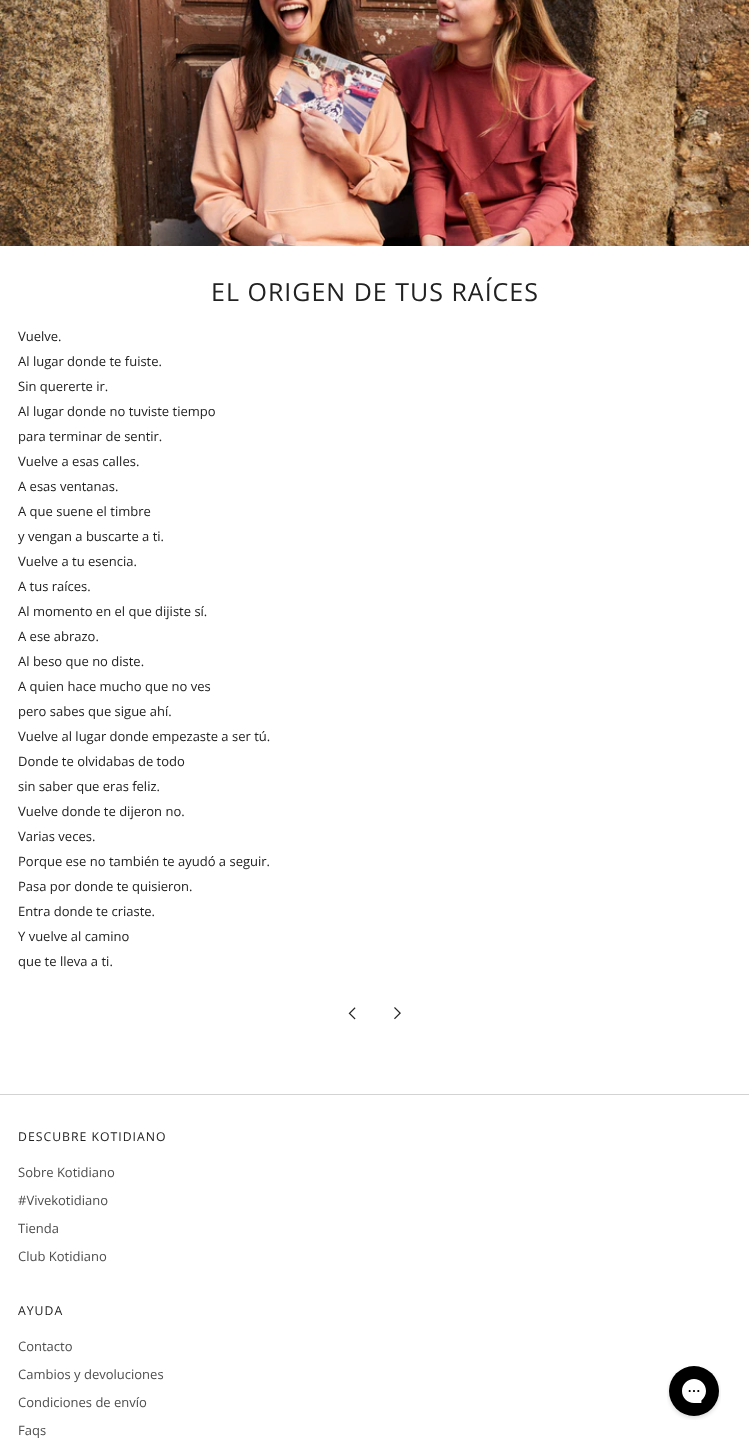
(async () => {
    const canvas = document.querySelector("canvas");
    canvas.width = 749;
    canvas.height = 1450;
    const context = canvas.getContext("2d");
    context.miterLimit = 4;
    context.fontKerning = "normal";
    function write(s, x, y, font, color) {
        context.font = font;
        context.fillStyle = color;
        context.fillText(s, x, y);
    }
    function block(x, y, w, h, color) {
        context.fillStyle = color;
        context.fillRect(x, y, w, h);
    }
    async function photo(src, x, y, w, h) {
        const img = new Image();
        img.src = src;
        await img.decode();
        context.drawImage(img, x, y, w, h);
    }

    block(0, 0, 749, 1450, "rgb(255, 255, 255)");
    await photo("media/1.png", 0, 0, 749, 246);
    context.letterSpacing = "1px";
    write("EL ORIGEN DE TUS RAÍCES", 211, 301, "25px Open Sans", "rgb(33, 33, 33)");
    context.letterSpacing = "0px";
    write("Vuelve.", 18, 341, "13px Open Sans", "rgb(33, 33, 33)");
    write("Al lugar donde te fuiste.", 18, 366, "13px Open Sans", "rgb(33, 33, 33)");
    write("Sin quererte ir.", 18, 391, "13px Open Sans", "rgb(33, 33, 33)");
    write("Al lugar donde no tuviste tiempo", 18, 416, "13px Open Sans", "rgb(33, 33, 33)");
    write("para terminar de sentir.", 18, 441, "13px Open Sans", "rgb(33, 33, 33)");
    write("Vuelve a esas calles.", 18, 466, "13px Open Sans", "rgb(33, 33, 33)");
    write("A esas ventanas.", 18, 491, "13px Open Sans", "rgb(33, 33, 33)");
    write("A que suene el timbre", 18, 516, "13px Open Sans", "rgb(33, 33, 33)");
    write("y vengan a buscarte a ti.", 18, 541, "13px Open Sans", "rgb(33, 33, 33)");
    write("Vuelve a tu esencia.", 18, 566, "13px Open Sans", "rgb(33, 33, 33)");
    write("A tus raíces.", 18, 591, "13px Open Sans", "rgb(33, 33, 33)");
    write("Al momento en el que dijiste sí.", 18, 616, "13px Open Sans", "rgb(33, 33, 33)");
    write("A ese abrazo.", 18, 641, "13px Open Sans", "rgb(33, 33, 33)");
    write("Al beso que no diste.", 18, 666, "13px Open Sans", "rgb(33, 33, 33)");
    write("A quien hace mucho que no ves", 18, 691, "13px Open Sans", "rgb(33, 33, 33)");
    write("pero sabes que sigue ahí.", 18, 716, "13px Open Sans", "rgb(33, 33, 33)");
    write("Vuelve al lugar donde empezaste a ser tú.", 18, 741, "13px Open Sans", "rgb(33, 33, 33)");
    write("Donde te olvidabas de todo", 18, 766, "13px Open Sans", "rgb(33, 33, 33)");
    write("sin saber que eras feliz.", 18, 791, "13px Open Sans", "rgb(33, 33, 33)");
    write("Vuelve donde te dijeron no.", 18, 816, "13px Open Sans", "rgb(33, 33, 33)");
    write("Varias veces.", 18, 841, "13px Open Sans", "rgb(33, 33, 33)");
    write("Porque ese no también te ayudó a seguir.", 18, 866, "13px Open Sans", "rgb(33, 33, 33)");
    write("Pasa por donde te quisieron.", 18, 891, "13px Open Sans", "rgb(33, 33, 33)");
    write("Entra donde te criaste.", 18, 916, "13px Open Sans", "rgb(33, 33, 33)");
    write("Y vuelve al camino", 18, 941, "13px Open Sans", "rgb(33, 33, 33)");
    write("que te lleva a ti.", 18, 966, "13px Open Sans", "rgb(33, 33, 33)");
    await photo("media/2.png", 348, 1007, 8, 13);
    await photo("media/3.png", 394, 1007, 7, 13);
    block(0, 1094, 749, 1, "rgb(211, 211, 211)");
    context.letterSpacing = "1px";
    write("DESCUBRE KOTIDIANO", 18, 1141, "12.25px Open Sans", "rgb(33, 33, 33)");
    context.letterSpacing = "0px";
    write("Sobre Kotidiano", 18, 1177, "13px Open Sans", "rgb(77, 77, 77)");
    write("#Vivekotidiano", 18, 1205, "13px Open Sans", "rgb(77, 77, 77)");
    write("Tienda", 18, 1233, "13px Open Sans", "rgb(77, 77, 77)");
    write("Club Kotidiano", 18, 1261, "13px Open Sans", "rgb(77, 77, 77)");
    context.letterSpacing = "1px";
    write("AYUDA", 18, 1315, "12.25px Open Sans", "rgb(33, 33, 33)");
    context.letterSpacing = "0px";
    write("Contacto", 18, 1351, "13px Open Sans", "rgb(77, 77, 77)");
    write("Cambios y devoluciones", 18, 1379, "13px Open Sans", "rgb(77, 77, 77)");
    write("Condiciones de envío", 18, 1407, "13px Open Sans", "rgb(77, 77, 77)");
    write("Faqs", 18, 1435, "13px Open Sans", "rgb(77, 77, 77)");
    await photo("media/4.png", 667, 1366, 54, 54);
})();
